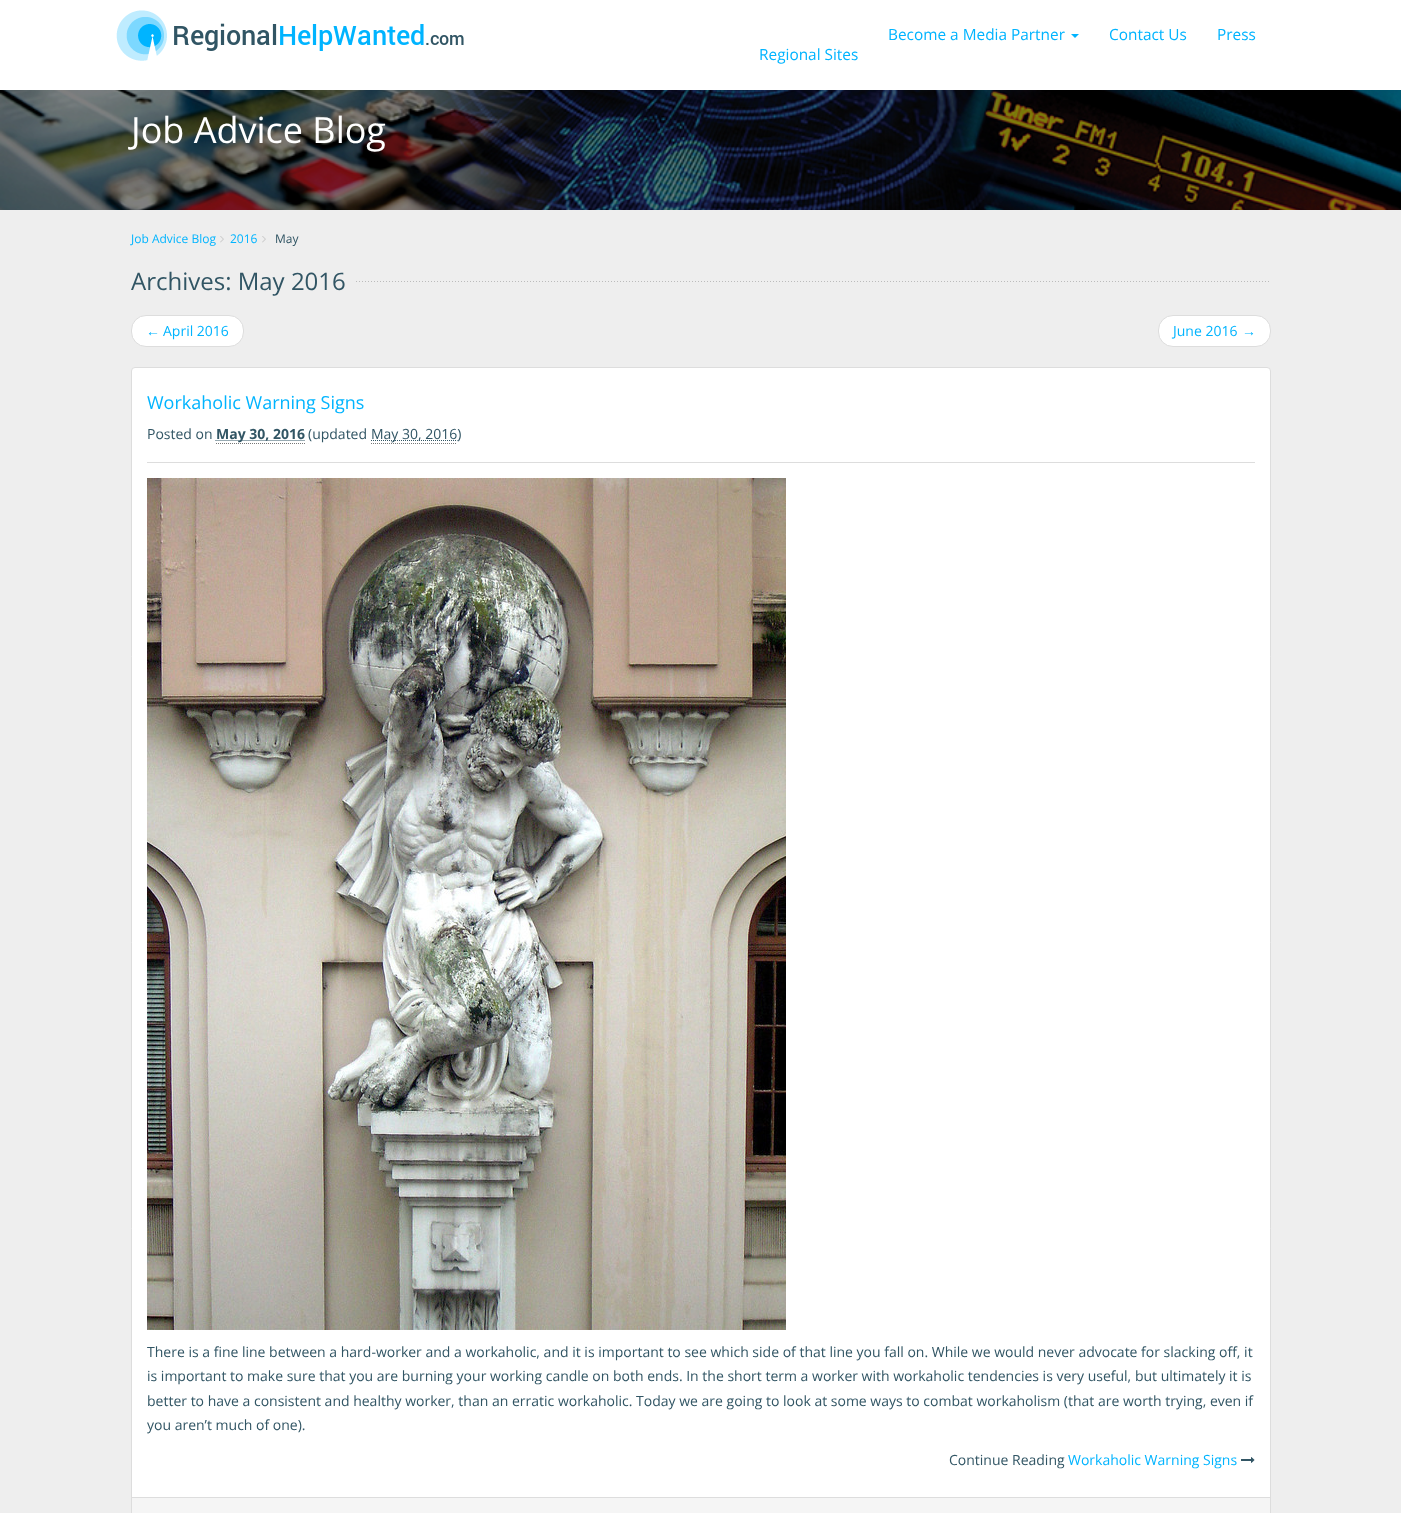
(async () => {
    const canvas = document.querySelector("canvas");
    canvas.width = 1401;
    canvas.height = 1513;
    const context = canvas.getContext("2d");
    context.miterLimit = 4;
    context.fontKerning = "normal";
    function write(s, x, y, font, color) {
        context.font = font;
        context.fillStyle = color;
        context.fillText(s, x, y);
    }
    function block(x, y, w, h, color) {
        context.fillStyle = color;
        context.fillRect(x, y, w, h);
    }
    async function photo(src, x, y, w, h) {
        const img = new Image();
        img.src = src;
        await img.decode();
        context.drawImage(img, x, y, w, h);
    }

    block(0, 0, 1401, 1513, "rgb(238, 238, 238)");
    block(0, 0, 1401, 90, "rgb(255, 255, 255)");
    await photo("media/1.png", 116, 10, 348, 51);
    write("Become a Media Partner", 888, 40, "15.4px Open Sans", "rgb(0, 180, 255)");
    context.beginPath();
    context.moveTo(1071, 34);
    context.lineTo(1079, 34);
    context.lineTo(1075, 38);
    context.closePath();
    context.fill();
    write("Contact Us", 1109, 40, "15.4px Open Sans", "rgb(0, 180, 255)");
    write("Press", 1217, 40, "15.4px Open Sans", "rgb(0, 180, 255)");
    write("Regional Sites", 759, 60, "15.4px Open Sans", "rgb(0, 180, 255)");
    await photo("media/2.png", 0, 90, 1401, 120);
    write("Job Advice Blog", 131, 143, "36px Open Sans", "rgb(255, 255, 255)");
    write("Job Advice Blog", 131, 243, "12px Open Sans", "rgb(0, 180, 255)");
    await photo("media/3.png", 220, 236, 4, 7);
    write("2016", 230, 243, "12px Open Sans", "rgb(0, 180, 255)");
    await photo("media/3.png", 262, 236, 4, 7);
    write("May", 275, 243, "12px Open Sans", "rgb(49, 85, 100)");
    await photo("media/4.png", 356, 281, 913, 1);
    write("Archives: May 2016", 131, 290, "24px Open Sans", "rgb(49, 85, 100)");
    context.fillStyle = "rgb(255, 255, 255)";
    context.beginPath();
    context.roundRect(131.5, 315.5, 112, 31, 14.5);
    context.fill();
    context.strokeStyle = "rgb(221, 221, 221)";
    context.stroke();
    write("←", 146, 336, "14px Liberation Sans", "rgb(0, 180, 255)");
    write("April 2016", 163, 336, "14px Open Sans", "rgb(0, 180, 255)");
    context.fillStyle = "rgb(255, 255, 255)";
    context.beginPath();
    context.roundRect(1158.5, 315.5, 112, 31, 14.5);
    context.fill();
    context.stroke();
    write("June 2016", 1173, 336, "14px Open Sans", "rgb(0, 180, 255)");
    write("→", 1242, 336, "14px Liberation Sans", "rgb(0, 180, 255)");
    context.fillStyle = "rgb(255, 255, 255)";
    context.beginPath();
    context.roundRect(131.5, 367.5, 1139, 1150, 3.5);
    context.fill();
    context.stroke();
    write("Workaholic Warning Signs", 147, 409, "18px Open Sans", "rgb(0, 180, 255)");
    write("Posted on", 147, 439, "14px Open Sans", "rgb(49, 85, 100)");
    context.beginPath();
    context.moveTo(215.5, 440.5);
    context.lineTo(304.5, 440.5);
    context.strokeStyle = "rgb(49, 85, 100)";
    context.setLineDash([1, 1]);
    context.stroke();
    write("May 30, 2016", 216, 439, "bold 14px Open Sans", "rgb(49, 85, 100)");
    context.beginPath();
    context.moveTo(216, 443.5);
    context.lineTo(305, 443.5);
    context.strokeStyle = "rgb(119, 119, 119)";
    context.stroke();
    write("(updated", 308, 439, "14px Open Sans", "rgb(49, 85, 100)");
    context.beginPath();
    context.moveTo(371, 440.5);
    context.lineTo(457.5, 440.5);
    context.strokeStyle = "rgb(49, 85, 100)";
    context.stroke();
    write("May 30, 2016)", 371, 439, "14px Open Sans", "rgb(49, 85, 100)");
    context.beginPath();
    context.moveTo(371, 443.5);
    context.lineTo(457, 443.5);
    context.strokeStyle = "rgb(119, 119, 119)";
    context.stroke();
    block(147, 462, 1108, 1, "rgb(221, 221, 221)");
    await photo("media/5.png", 147, 478, 639, 852);
    write("There is a fine line between a hard-worker and a workaholic, and it is important to see which side of that line you fall on. While we would never advocate for slacking off, it", 147, 1357, "14px Open Sans", "rgb(49, 85, 100)");
    write("is important to make sure that you are burning your working candle on both ends. In the short term a worker with workaholic tendencies is very useful, but ultimately it is", 147, 1381, "14px Open Sans", "rgb(49, 85, 100)");
    write("better to have a consistent and healthy worker, than an erratic workaholic. Today we are going to look at some ways to combat workaholism (that are worth trying, even if", 147, 1406, "14px Open Sans", "rgb(49, 85, 100)");
    write("you aren’t much of one).", 147, 1430, "14px Open Sans", "rgb(49, 85, 100)");
    write("Continue Reading", 949, 1465, "14px Open Sans", "rgb(49, 85, 100)");
    write("Workaholic Warning Signs", 1068, 1465, "14px Open Sans", "rgb(0, 180, 255)");
    await photo("media/6.png", 1241, 1457, 14, 6);
    block(132, 1498, 1138, 15, "rgb(245, 245, 245)");
    block(132, 1497, 1138, 1, "rgb(221, 221, 221)");
})();
